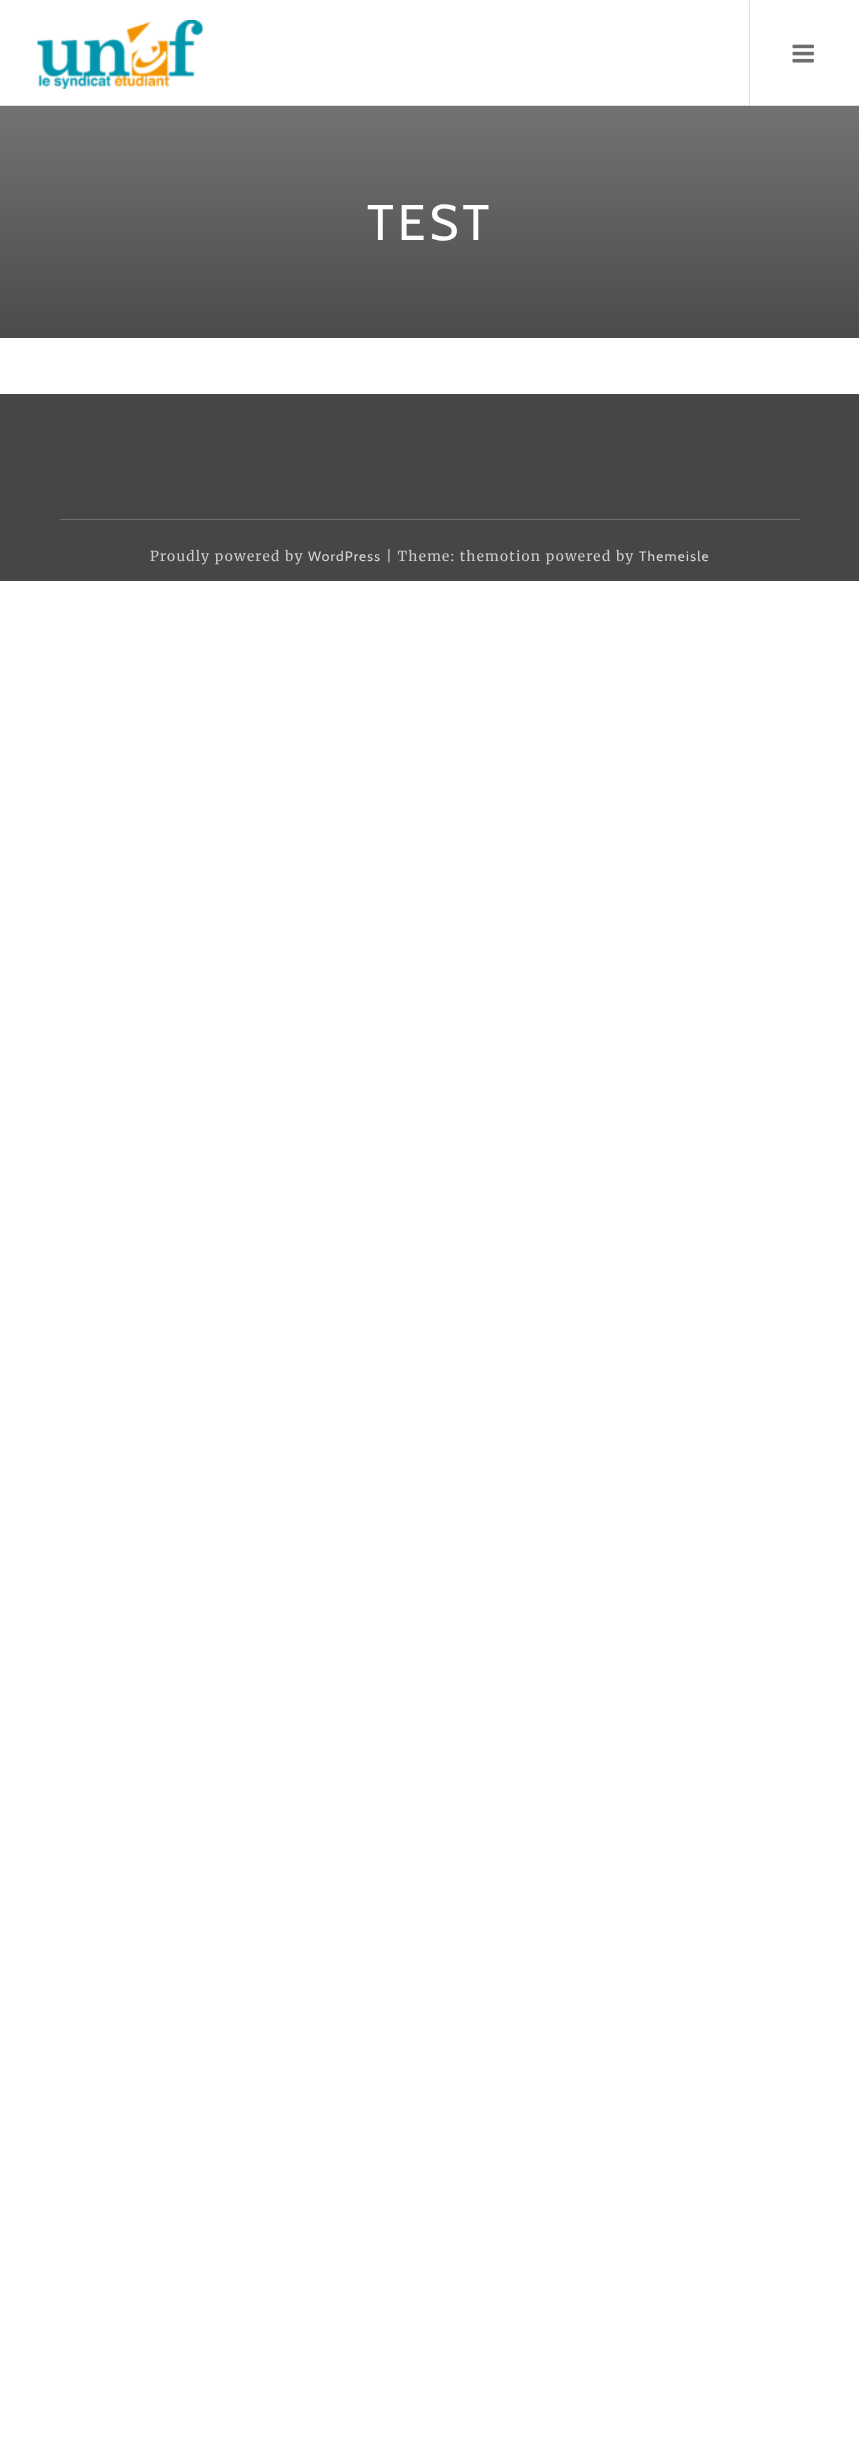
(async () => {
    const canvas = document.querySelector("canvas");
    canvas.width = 859;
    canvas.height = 2455;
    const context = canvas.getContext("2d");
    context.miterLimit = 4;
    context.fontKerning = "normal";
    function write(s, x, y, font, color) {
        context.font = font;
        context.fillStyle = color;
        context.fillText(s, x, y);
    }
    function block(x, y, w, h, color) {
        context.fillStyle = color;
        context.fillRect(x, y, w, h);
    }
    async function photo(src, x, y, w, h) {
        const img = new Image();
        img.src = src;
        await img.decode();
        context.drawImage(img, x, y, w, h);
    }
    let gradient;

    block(0, 0, 859, 2455, "rgb(255, 255, 255)");
    block(0, 105, 859, 1, "rgb(223, 223, 223)");
    await photo("media/1.png", 37, 20, 166, 69);
    block(749, 1, 1, 107, "rgb(223, 223, 223)");
    await photo("media/2.png", 792, 44, 22, 19);
    gradient = context.createLinearGradient(430, 106, 430, 338);
    gradient.addColorStop(0, "rgba(55, 55, 53, 0.7)");
    gradient.addColorStop(1, "rgba(55, 55, 53, 0.9)");
    context.fillStyle = gradient;
    context.fillRect(0, 106, 859, 232);
    context.letterSpacing = "4px";
    write("TEST", 367, 240, "50px Cabin", "rgb(255, 255, 255)");
    block(0, 394, 859, 187, "rgb(70, 70, 70)");
    block(60, 519, 740, 1, "rgb(111, 110, 107)");
    context.letterSpacing = "1.25px";
    write("Proudly powered by", 150, 561, "300 13.75px Merriweather", "rgb(203, 203, 203)");
    write("WordPress", 308, 561, "13.75px Cabin", "rgb(215, 215, 215)");
    write("| Theme: themotion powered by", 386, 561, "300 13.75px Merriweather", "rgb(203, 203, 203)");
    write("Themeisle", 639, 561, "13.75px Cabin", "rgb(215, 215, 215)");
})();
